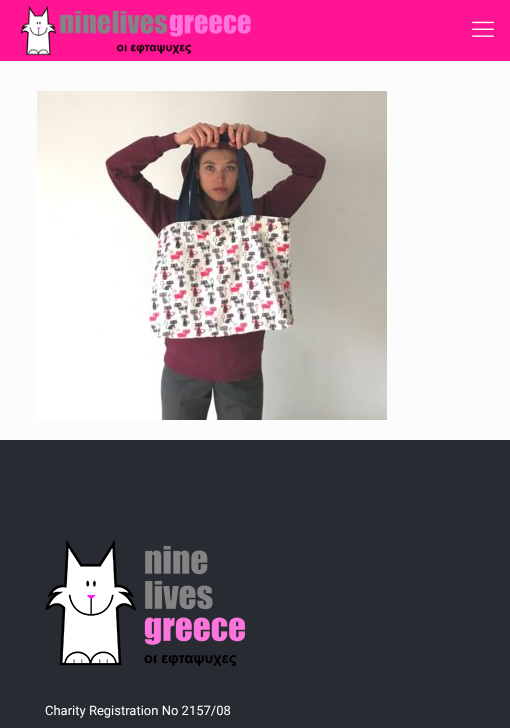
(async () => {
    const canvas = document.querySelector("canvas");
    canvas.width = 510;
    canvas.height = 728;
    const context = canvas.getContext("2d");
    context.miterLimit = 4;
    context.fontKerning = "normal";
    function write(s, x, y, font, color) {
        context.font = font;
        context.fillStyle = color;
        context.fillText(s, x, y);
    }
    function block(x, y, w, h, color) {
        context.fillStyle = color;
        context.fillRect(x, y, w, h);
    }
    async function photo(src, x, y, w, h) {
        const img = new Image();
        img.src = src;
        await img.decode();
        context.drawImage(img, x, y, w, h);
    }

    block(0, 0, 510, 728, "rgb(252, 252, 252)");
    block(0, 0, 510, 61, "rgb(255, 20, 147)");
    await photo("media/1.png", 20, 6, 231, 50);
    await photo("media/2.png", 472, 21, 22, 16);
    await photo("media/3.png", 37, 91, 350, 329);
    block(0, 440, 510, 288, "rgb(41, 43, 51)");
    await photo("media/4.png", 45, 540, 200, 126);
    write("Charity Registration No 2157/08", 45, 715, "13px Roboto", "rgb(255, 255, 255)");
})();
